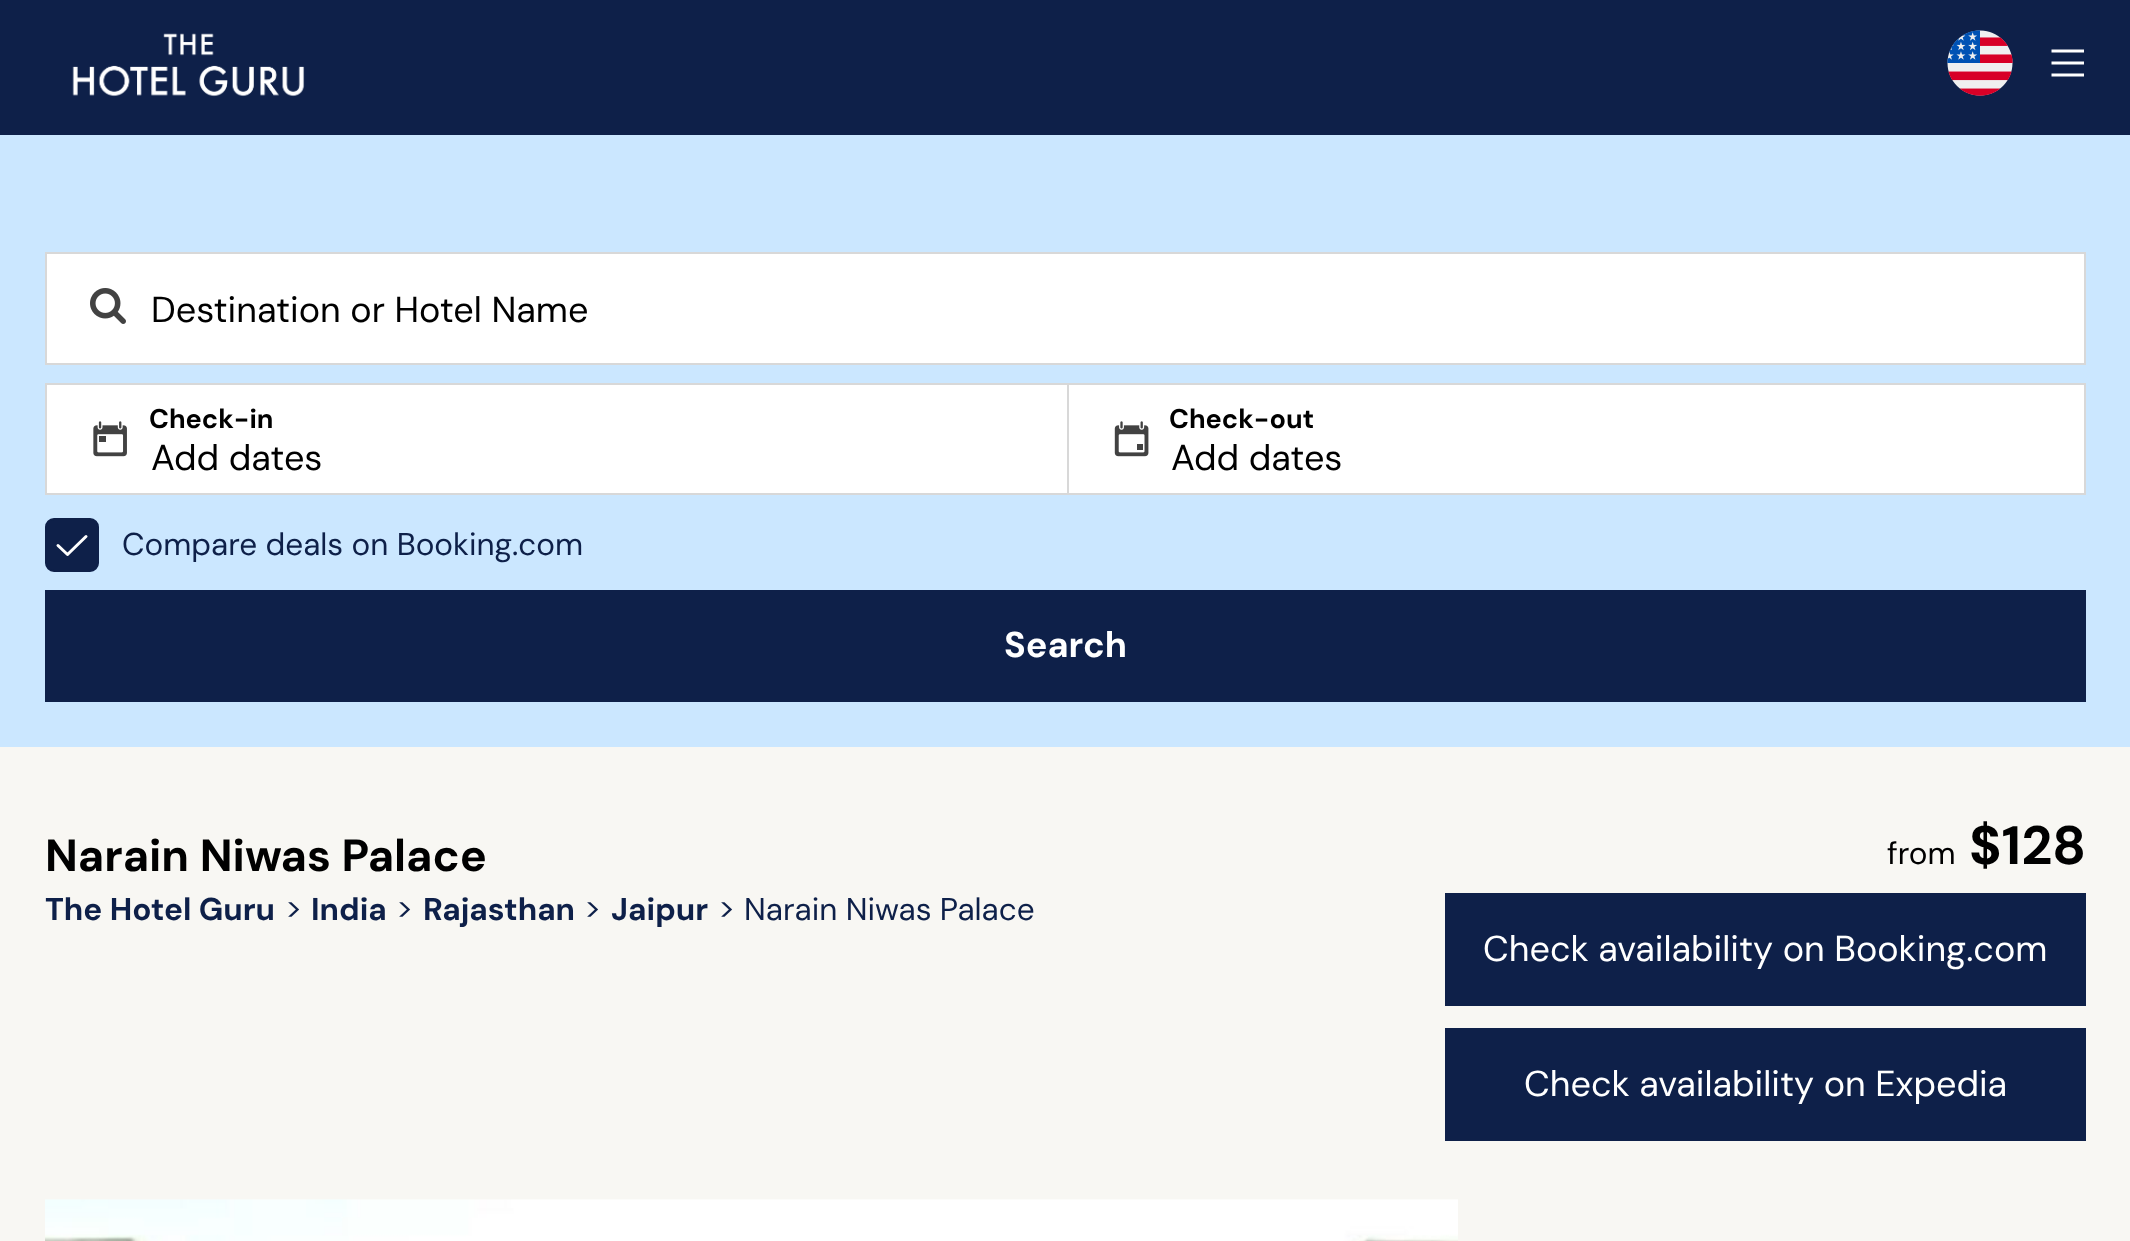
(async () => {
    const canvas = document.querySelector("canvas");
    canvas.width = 2130;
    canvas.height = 1241;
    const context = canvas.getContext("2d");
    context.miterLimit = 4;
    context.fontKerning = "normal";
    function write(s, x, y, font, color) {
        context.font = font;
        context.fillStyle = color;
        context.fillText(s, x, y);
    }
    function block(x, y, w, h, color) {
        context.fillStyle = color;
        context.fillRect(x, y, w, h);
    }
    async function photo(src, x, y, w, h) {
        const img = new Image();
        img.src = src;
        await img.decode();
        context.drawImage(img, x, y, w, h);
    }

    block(0, 0, 2130, 1241, "rgb(248, 247, 243)");
    block(0, 0, 2130, 135, "rgb(14, 32, 73)");
    await photo("media/1.png", 72, 33, 233, 64);
    await photo("media/2.png", 1947, 30, 66, 66);
    context.beginPath();
    context.moveTo(2053, 51);
    context.lineTo(2082.5, 51);
    context.moveTo(2053, 63);
    context.lineTo(2082.5, 63);
    context.moveTo(2053, 75);
    context.lineTo(2082.5, 75);
    context.strokeStyle = "rgb(255, 255, 255)";
    context.lineWidth = 3;
    context.lineCap = "square";
    context.stroke();
    block(0, 135, 2130, 612, "rgb(203, 231, 255)");
    context.fillStyle = "rgb(255, 255, 255)";
    context.beginPath();
    context.rect(46, 253, 2039, 111);
    context.fill();
    context.strokeStyle = "rgb(216, 216, 216)";
    context.lineWidth = 2;
    context.stroke();
    await photo("media/3.png", 90, 288, 36, 36);
    write("Destination or Hotel Name", 151, 322, "36px DM Sans", "rgb(0, 0, 0)");
    block(47, 385, 1020, 108, "rgb(255, 255, 255)");
    write("Check-in", 149, 428, "bold 27px DM Sans", "rgb(0, 0, 0)");
    await photo("media/4.png", 93, 421, 34, 36);
    block(45, 383, 1022, 2, "rgb(216, 216, 216)");
    block(45, 493, 1022, 2, "rgb(216, 216, 216)");
    block(45, 383, 2, 112, "rgb(216, 216, 216)");
    write("Add dates", 151, 470, "36px DM Sans", "rgb(0, 0, 0)");
    block(1069, 385, 1015, 108, "rgb(255, 255, 255)");
    await photo("media/5.png", 1114, 421, 35, 36);
    context.strokeRect(1068, 384, 1017, 110);
    write("Check-out", 1169, 428, "bold 27px DM Sans", "rgb(0, 0, 0)");
    write("Add dates", 1171, 470, "36px DM Sans", "rgb(0, 0, 0)");
    context.fillStyle = "rgb(14, 32, 73)";
    context.beginPath();
    context.roundRect(46, 519, 52, 52, 8);
    context.fill();
    context.strokeStyle = "rgb(14, 32, 73)";
    context.stroke();
    context.beginPath();
    context.moveTo(58, 545.5);
    context.lineTo(67.5, 554.5);
    context.lineTo(86, 536.5);
    context.strokeStyle = "rgb(255, 255, 255)";
    context.lineWidth = 3;
    context.lineCap = "round";
    context.lineJoin = "round";
    context.stroke();
    write("Compare deals on Booking.com", 122, 555, "31.5px DM Sans", "rgb(14, 32, 73)");
    block(45, 590, 2041, 112, "rgb(14, 32, 73)");
    write("Search", 1004, 657, "bold 36px DM Sans", "rgb(255, 255, 255)");
    write("Narain Niwas Palace", 45, 871, "bold 45px DM Sans", "rgb(0, 0, 0)");
    write("The Hotel Guru", 45, 920, "bold 31.5px DM Sans", "rgb(14, 32, 73)");
    write(">", 285, 918, "31.5px DM Sans", "rgb(14, 32, 73)");
    write("India", 311, 920, "bold 31.5px DM Sans", "rgb(14, 32, 73)");
    write(">", 396, 918, "31.5px DM Sans", "rgb(14, 32, 73)");
    write("Rajasthan", 423, 920, "bold 31.5px DM Sans", "rgb(14, 32, 73)");
    write(">", 584, 918, "31.5px DM Sans", "rgb(14, 32, 73)");
    write("Jaipur", 611, 920, "bold 31.5px DM Sans", "rgb(14, 32, 73)");
    write(">", 718, 918, "31.5px DM Sans", "rgb(14, 32, 73)");
    write("Narain Niwas Palace", 744, 920, "31.5px DM Sans", "rgb(14, 32, 73)");
    write("from", 1887, 864, "31.5px DM Sans", "rgb(0, 0, 0)");
    write("$128", 1969, 864, "bold 54px DM Sans", "rgb(0, 0, 0)");
    block(1445, 893, 641, 113, "rgb(14, 32, 73)");
    write("Check availability on Booking.com", 1483, 961, "36px DM Sans", "rgb(255, 255, 255)");
    block(1445, 1028, 641, 113, "rgb(14, 32, 73)");
    write("Check availability on Expedia", 1524, 1096, "36px DM Sans", "rgb(255, 255, 255)");
    await photo("media/6.png", 45, 1199, 1413, 42);
})();
